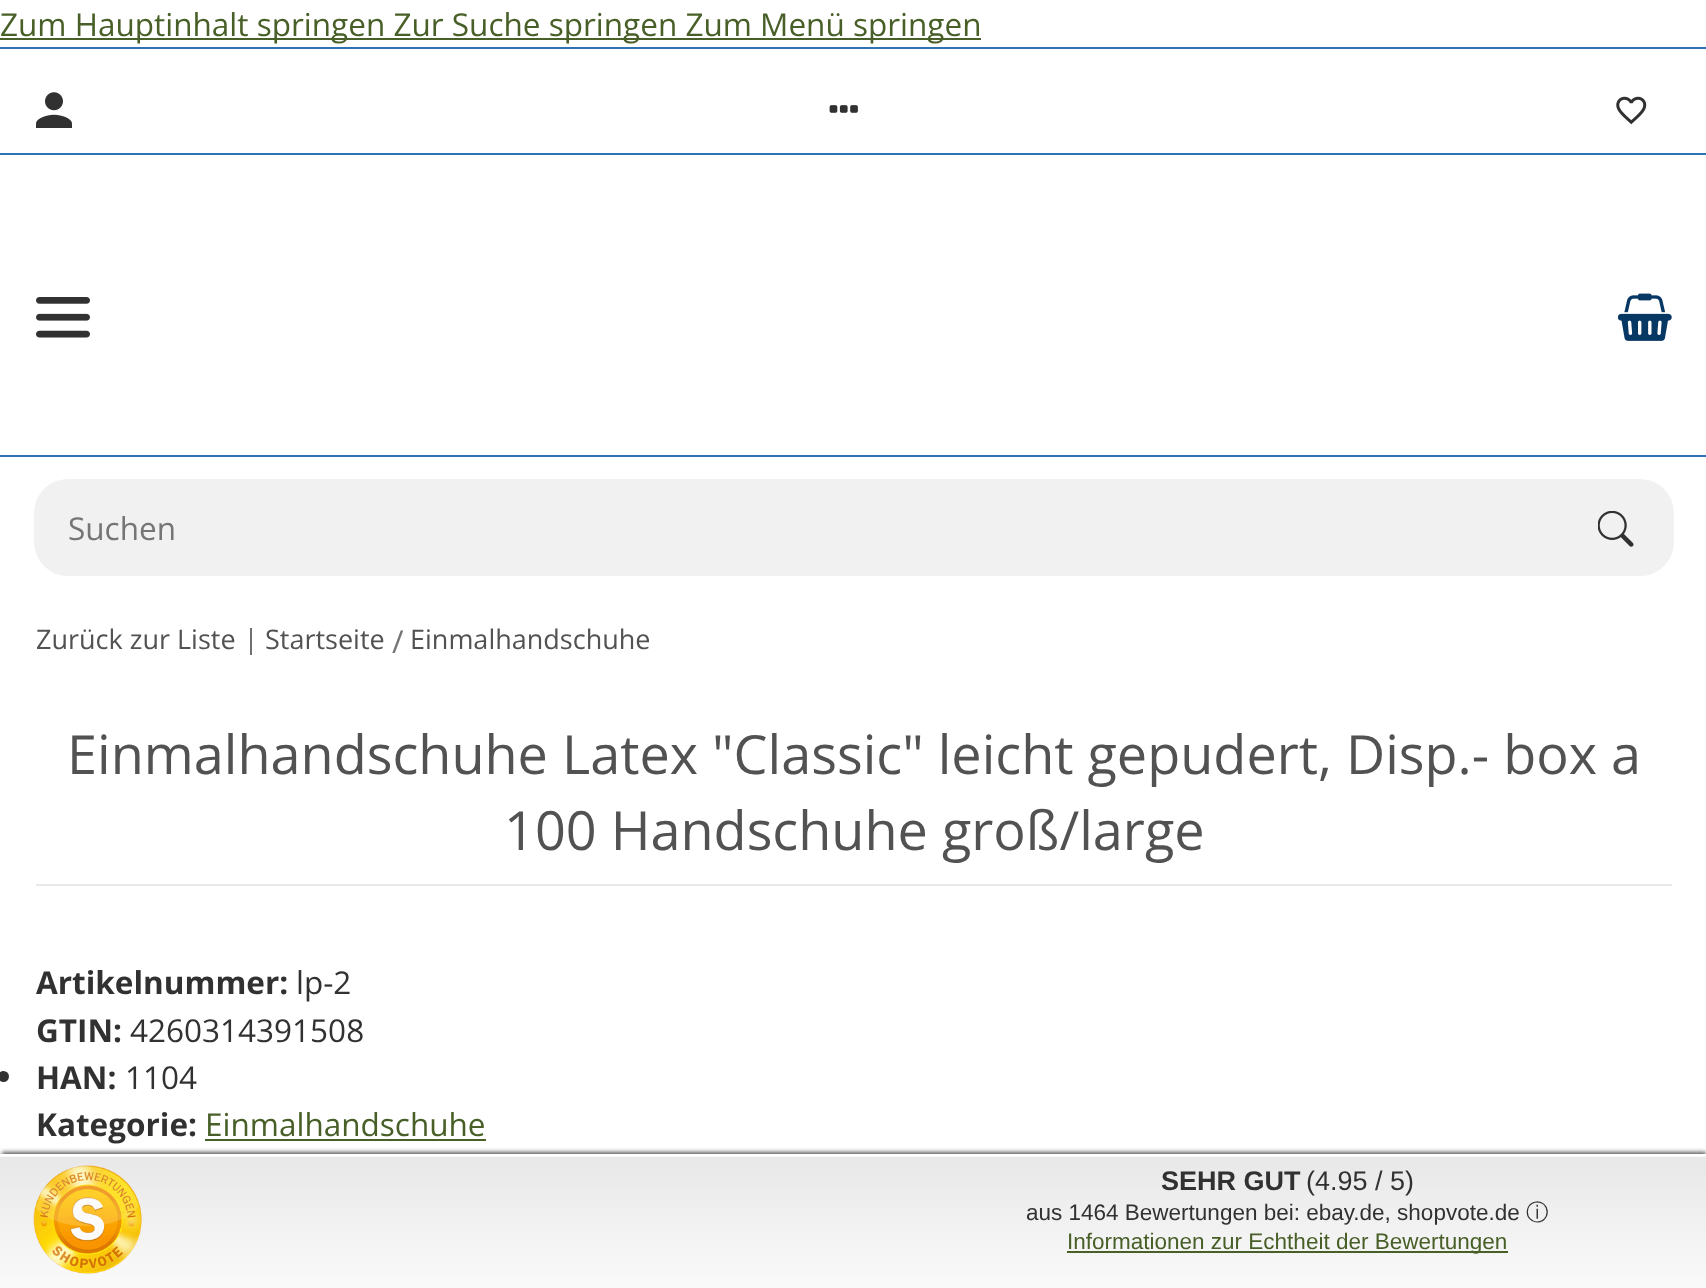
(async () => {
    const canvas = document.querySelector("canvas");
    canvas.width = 1706;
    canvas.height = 1288;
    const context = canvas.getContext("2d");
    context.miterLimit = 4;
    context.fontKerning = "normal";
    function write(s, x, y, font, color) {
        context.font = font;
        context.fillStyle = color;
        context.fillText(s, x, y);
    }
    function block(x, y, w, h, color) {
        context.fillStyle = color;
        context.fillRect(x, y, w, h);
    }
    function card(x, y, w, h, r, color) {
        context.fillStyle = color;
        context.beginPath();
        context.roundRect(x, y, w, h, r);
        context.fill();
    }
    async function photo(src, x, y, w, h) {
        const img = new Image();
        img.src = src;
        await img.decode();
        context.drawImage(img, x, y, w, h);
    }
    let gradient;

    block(0, 0, 1706, 1288, "rgb(255, 255, 255)");
    block(0, 38, 981, 2, "rgb(72, 95, 39)");
    write("Zum Hauptinhalt springen Zur Suche springen Zum Menü springen", 0, 36, "31.5px Open Sans", "rgb(72, 95, 39)");
    block(0, 47, 1706, 2, "rgb(45, 115, 179)");
    block(0, 153, 1706, 2, "rgb(45, 115, 179)");
    await photo("media/1.png", 36, 92, 36, 36);
    await photo("media/2.png", 829, 105, 29, 8);
    await photo("media/3.png", 1616, 96, 31, 29);
    block(0, 455, 1706, 2, "rgb(45, 115, 179)");
    await photo("media/4.png", 36, 297, 54, 41);
    await photo("media/5.png", 1618, 293, 54, 48);
    card(34, 479, 1640, 97, 34, "rgb(241, 241, 241)");
    write("Suchen", 68, 540, "31.5px Open Sans", "rgb(117, 117, 117)");
    await photo("media/6.png", 1598, 511, 36, 36);
    write("Zurück zur Liste", 36, 649, "27px Open Sans", "rgb(82, 82, 82)");
    block(250, 628, 2, 27, "rgb(112, 112, 112)");
    write("Startseite", 265, 649, "27px Open Sans", "rgb(82, 82, 82)");
    write("/", 392, 653, "31.5px Open Sans", "rgb(117, 117, 117)");
    write("Einmalhandschuhe", 410, 649, "27px Open Sans", "rgb(82, 82, 82)");
    block(36, 884, 1636, 2, "rgb(233, 233, 233)");
    write("Einmalhandschuhe Latex \"Classic\" leicht gepudert, Disp.- box a", 67, 774, "54px Open Sans", "rgb(82, 82, 82)");
    write("100 Handschuhe groß/large", 504, 850, "54px Open Sans", "rgb(82, 82, 82)");
    write("Artikelnummer:", 36, 994, "bold 31.5px Open Sans", "rgb(49, 49, 49)");
    write("lp-2", 296, 994, "31.5px Open Sans", "rgb(49, 49, 49)");
    write("GTIN:", 36, 1042, "bold 31.5px Open Sans", "rgb(49, 49, 49)");
    write("4260314391508", 130, 1042, "31.5px Open Sans", "rgb(49, 49, 49)");
    context.beginPath();
    context.arc(3.5, 1076.5, 5.5, 0, Math.PI * 2);
    context.fill();
    write("HAN:", 36, 1089, "bold 31.5px Open Sans", "rgb(49, 49, 49)");
    write("1104", 125, 1089, "31.5px Open Sans", "rgb(49, 49, 49)");
    write("Kategorie:", 36, 1136, "bold 31.5px Open Sans", "rgb(49, 49, 49)");
    write("Einmalhandschuhe", 205, 1136, "31.5px Open Sans", "rgb(72, 95, 39)");
    block(205, 1139, 281, 2, "rgb(72, 95, 39)");
    context.fillStyle = "rgba(0, 0, 0, 0.65)";
    context.filter = "blur(2px)";
    context.beginPath();
    context.rect(2, 1152, 1704, 131);
    context.fill();
    context.filter = "none";
    gradient = context.createLinearGradient(854, 1024, 854, 1157);
    gradient.addColorStop(0, "rgb(240, 240, 240)");
    gradient.addColorStop(0, "rgb(232, 232, 232)");
    gradient.addColorStop(1, "rgb(250, 250, 250)");
    context.fillStyle = gradient;
    context.fillRect(0, 1156, 1706, 1);
    gradient = context.createLinearGradient(854, 1157, 854, 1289);
    gradient.addColorStop(0, "rgb(240, 240, 240)");
    gradient.addColorStop(0, "rgb(232, 232, 232)");
    gradient.addColorStop(1, "rgb(250, 250, 250)");
    context.fillStyle = gradient;
    context.fillRect(0, 1157, 1706, 131);
    block(0, 1154, 1706, 2, "rgb(255, 255, 255)");
    await photo("media/7.png", 33, 1165, 109, 109);
    write("SEHR GUT", 1161, 1190, "bold 27px Liberation Sans", "rgb(49, 49, 49)");
    write("(4.95 / 5)", 1306, 1190, "27px Liberation Sans", "rgb(49, 49, 49)");
    write("aus 1464 Bewertungen bei: ebay.de, shopvote.de", 1026, 1220, "22.5px Liberation Sans", "rgb(49, 49, 49)");
    write("ⓘ", 1526, 1220, "500 22.5px WenQuanYi Zen Hei", "rgb(49, 49, 49)");
    block(1067, 1251, 441, 2, "rgb(72, 95, 39)");
    write("Informationen zur Echtheit der Bewertungen", 1067, 1249, "22.5px Liberation Sans", "rgb(72, 95, 39)");
})();
